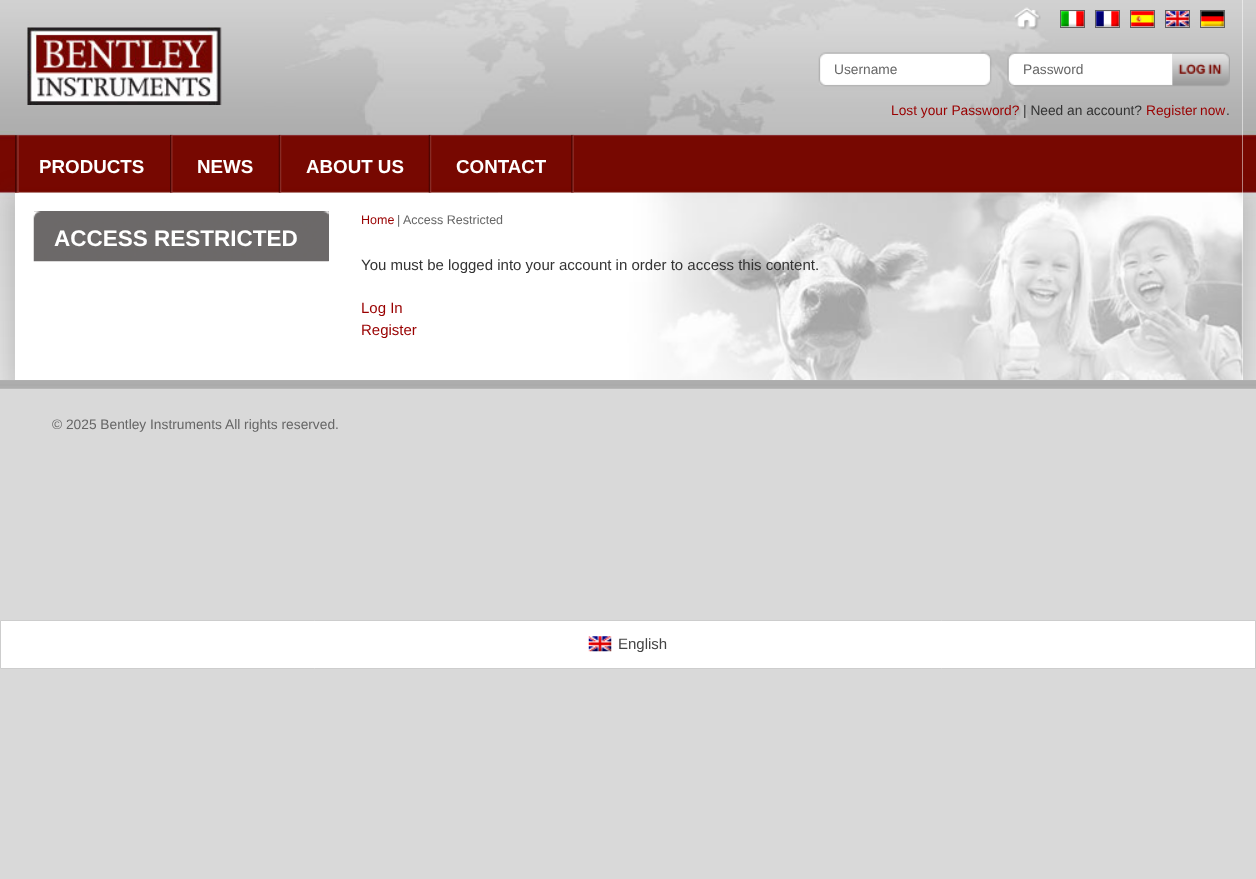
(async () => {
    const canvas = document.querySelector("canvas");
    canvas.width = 1256;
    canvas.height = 879;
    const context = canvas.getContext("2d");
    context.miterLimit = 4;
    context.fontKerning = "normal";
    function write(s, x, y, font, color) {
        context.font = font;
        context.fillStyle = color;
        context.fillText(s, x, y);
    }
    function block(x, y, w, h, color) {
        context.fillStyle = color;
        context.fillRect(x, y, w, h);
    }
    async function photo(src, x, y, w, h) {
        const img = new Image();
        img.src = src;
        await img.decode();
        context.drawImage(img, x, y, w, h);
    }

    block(0, 0, 1256, 879, "rgb(217, 217, 217)");
    await photo("media/1.png", 0, 0, 1256, 380);
    block(15, 0, 1228, 193, "rgb(255, 255, 255)");
    await photo("media/2.png", 15, 0, 1228, 135);
    await photo("media/3.png", 27, 27, 195, 78);
    await photo("media/4.png", 1014, 7, 27, 23);
    context.strokeStyle = "rgb(94, 94, 94)";
    context.strokeRect(1060.5, 10.5, 24, 17);
    await photo("media/5.png", 1061, 11, 23, 16);
    context.strokeRect(1095.5, 10.5, 24, 17);
    await photo("media/6.png", 1096, 11, 23, 16);
    context.strokeRect(1130.5, 10.5, 24, 17);
    await photo("media/7.png", 1131, 11, 23, 16);
    context.strokeRect(1165.5, 10.5, 24, 17);
    await photo("media/8.png", 1166, 11, 23, 16);
    context.strokeRect(1200.5, 10.5, 24, 17);
    await photo("media/9.png", 1201, 11, 23, 16);
    await photo("media/10.png", 818, 52, 174, 35);
    write("Username", 834, 74, "13.75px Liberation Sans", "rgb(102, 102, 102)");
    await photo("media/11.png", 1007, 52, 166, 35);
    write("Password", 1023, 74, "13.75px Liberation Sans", "rgb(102, 102, 102)");
    await photo("media/12.png", 1172, 52, 58, 35);
    write("Lost your Password?", 891, 115, "13.75px Liberation Sans", "rgb(153, 0, 0)");
    write("| Need an account?", 1023, 115, "13.75px Liberation Sans", "rgb(51, 51, 51)");
    context.wordSpacing = "-1px";
    write("Register now", 1146, 115, "13.75px Liberation Sans", "rgb(153, 0, 0)");
    context.wordSpacing = "0px";
    write(".", 1226, 115, "13.75px Liberation Sans", "rgb(51, 51, 51)");
    context.fillStyle = "rgba(51, 51, 51, 0.2)";
    context.filter = "blur(12.5px)";
    context.beginPath();
    context.rect(9, 193, 1240, 200);
    context.fill();
    context.filter = "none";
    block(15, 193, 1228, 187, "rgb(255, 255, 255)");
    await photo("media/19.png", 498, 192, 745, 188);
    await photo("media/13.png", 15, 134, 1228, 59);
    await photo("media/14.png", 15, 135, 4, 58);
    await photo("media/15.png", 170, 134, 3, 59);
    write("PRODUCTS", 39, 173, "bold 18.75px Liberation Sans", "rgb(255, 255, 255)");
    await photo("media/16.png", 278, 134, 4, 59);
    write("NEWS", 197, 173, "bold 18.75px Liberation Sans", "rgb(255, 255, 255)");
    await photo("media/17.png", 428, 134, 4, 59);
    write("ABOUT US", 306, 173, "bold 18.75px Liberation Sans", "rgb(255, 255, 255)");
    await photo("media/18.png", 571, 134, 3, 59);
    write("CONTACT", 456, 173, "bold 18.75px Liberation Sans", "rgb(255, 255, 255)");
    block(34, 211, 295, 50, "rgb(108, 105, 105)");
    await photo("media/20.png", 33, 211, 296, 51);
    write("ACCESS RESTRICTED", 54, 246, "bold 22.5px Liberation Sans", "rgb(255, 255, 255)");
    write("Home", 361, 224, "12.5px Liberation Sans", "rgb(153, 0, 0)");
    write("| Access Restricted", 397, 224, "12.5px Liberation Sans", "rgb(102, 102, 102)");
    write("You must be logged into your account in order to access this content.", 361, 270, "15px Liberation Sans", "rgb(51, 51, 51)");
    write("Log In", 361, 313, "15px Liberation Sans", "rgb(153, 0, 0)");
    write("Register", 361, 335, "15px Liberation Sans", "rgb(153, 0, 0)");
    await photo("media/21.png", 0, 380, 1256, 240);
    write("© 2025 Bentley Instruments", 52, 429, "13.75px Liberation Sans", "rgb(102, 102, 102)");
    write("All rights reserved.", 225, 429, "13.75px Liberation Sans", "rgb(102, 102, 102)");
    context.fillStyle = "rgb(255, 255, 255)";
    context.beginPath();
    context.rect(0.5, 620.5, 1255, 48);
    context.fill();
    context.strokeStyle = "rgb(205, 205, 205)";
    context.stroke();
    await photo("media/22.png", 588, 636, 24, 16);
    write("English", 618, 649, "15px Liberation Sans", "rgb(68, 68, 68)");
})();
